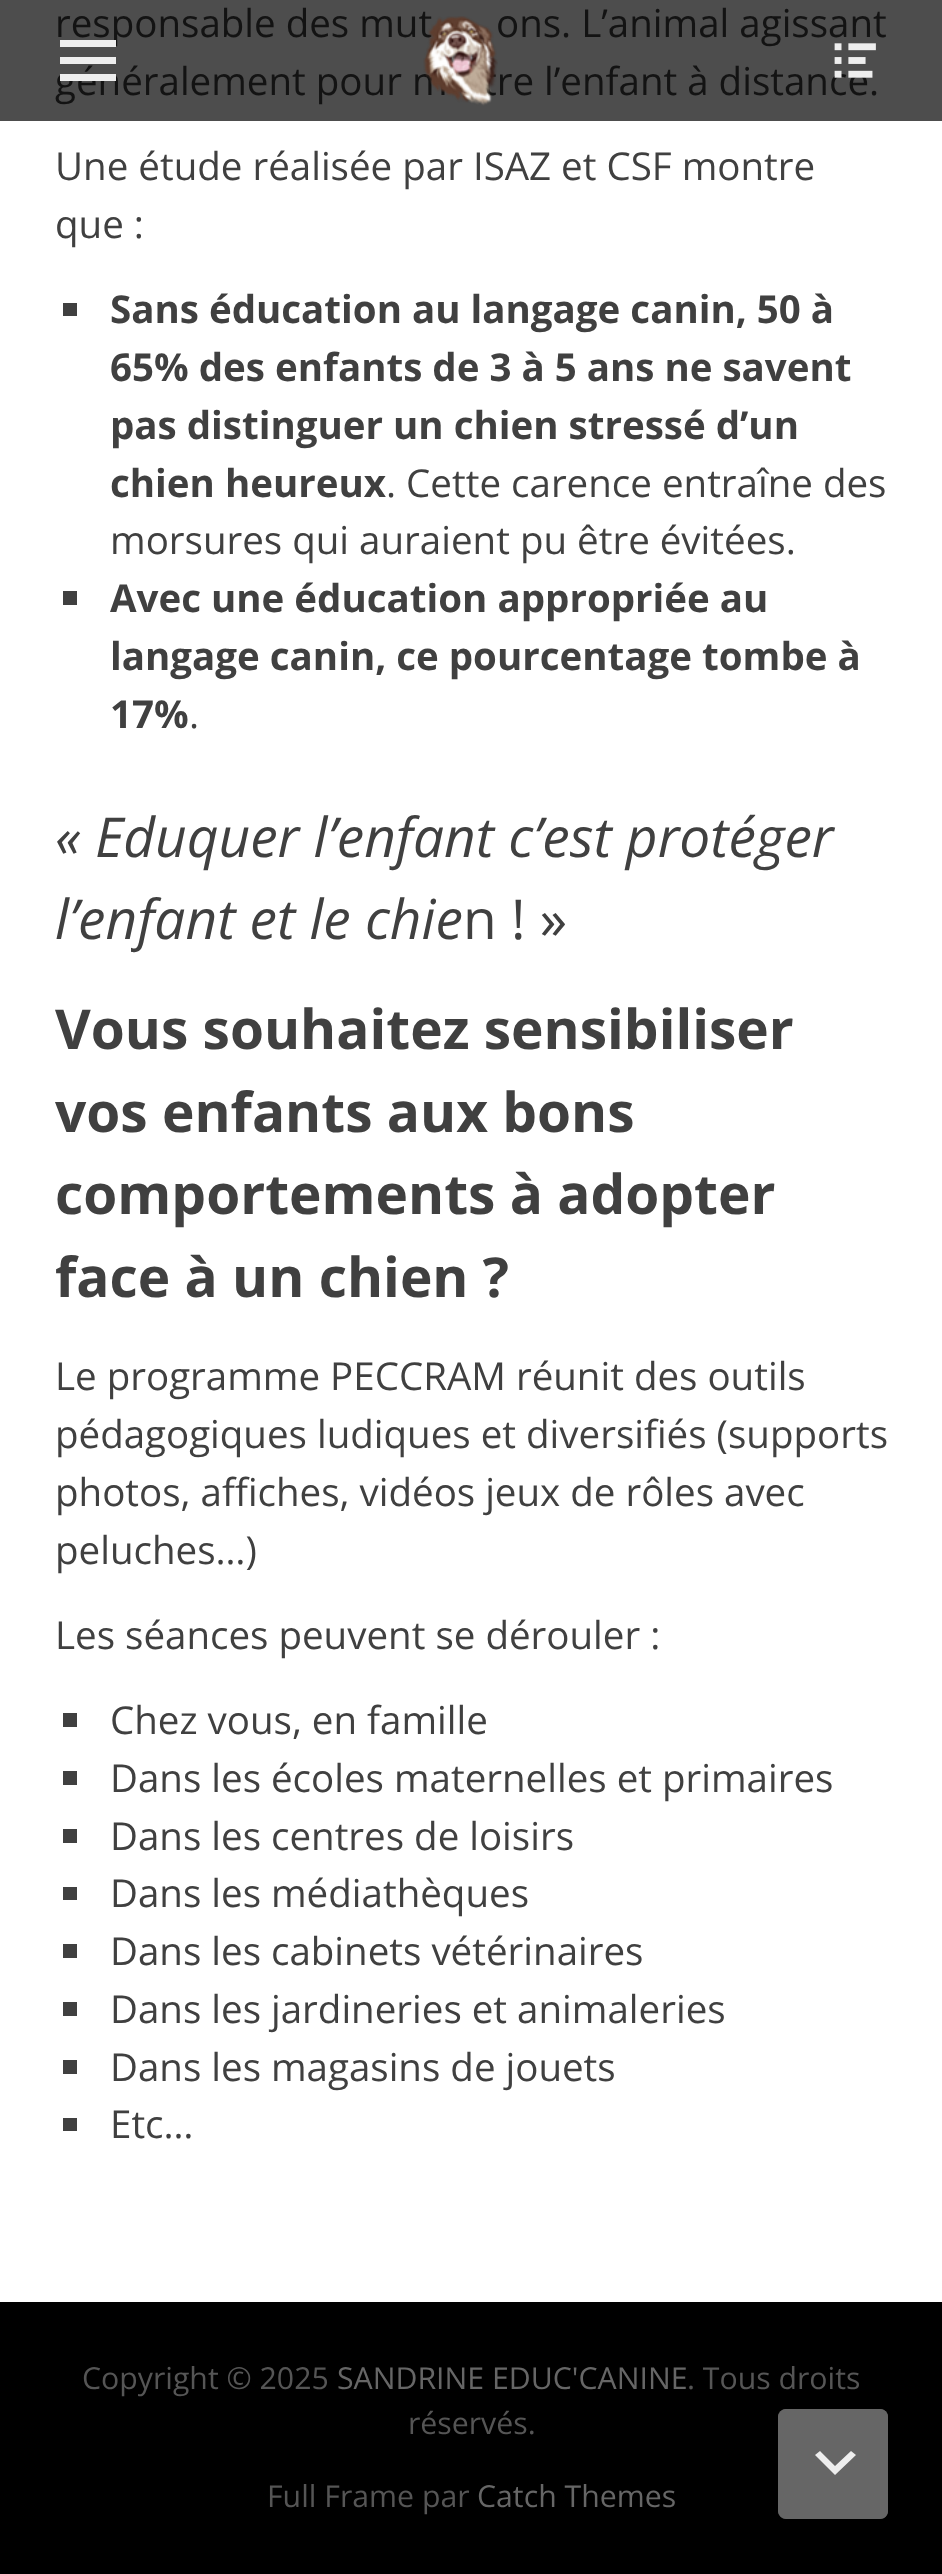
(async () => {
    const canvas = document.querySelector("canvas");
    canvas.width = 942;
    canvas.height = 2574;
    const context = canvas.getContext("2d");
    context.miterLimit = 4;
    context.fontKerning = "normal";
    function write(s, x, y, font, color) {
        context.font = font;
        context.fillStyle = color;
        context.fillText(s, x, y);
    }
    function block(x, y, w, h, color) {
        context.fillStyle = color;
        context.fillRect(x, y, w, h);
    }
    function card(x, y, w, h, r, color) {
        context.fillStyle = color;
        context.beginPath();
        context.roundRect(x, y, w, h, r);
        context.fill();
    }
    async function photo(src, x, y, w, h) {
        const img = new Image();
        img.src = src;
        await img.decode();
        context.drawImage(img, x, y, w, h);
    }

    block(0, 0, 942, 2574, "rgb(255, 255, 255)");
    block(0, 0, 942, 121, "rgb(77, 77, 77)");
    write("responsable des mut", 55, 37, "38.5px Open Sans", "rgb(19, 19, 19)");
    write("ons. L’animal agissant", 496, 37, "38.5px Open Sans", "rgb(19, 19, 19)");
    write("généralement pour m", 55, 95, "38.5px Open Sans", "rgb(19, 19, 19)");
    write("tre l’enfant à distance.", 483, 95, "38.5px Open Sans", "rgb(19, 19, 19)");
    write("Une étude réalisée par ISAZ et CSF montre", 55, 180, "38.5px Open Sans", "rgb(64, 64, 64)");
    write("que :", 55, 238, "38.5px Open Sans", "rgb(64, 64, 64)");
    block(63, 303, 14, 13, "rgb(64, 64, 64)");
    write("Sans éducation au langage canin, 50 à", 110, 323, "bold 38.5px Open Sans", "rgb(64, 64, 64)");
    write("65% des enfants de 3 à 5 ans ne savent", 110, 381, "bold 38.5px Open Sans", "rgb(64, 64, 64)");
    write("pas distinguer un chien stressé d’un", 110, 439, "bold 38.5px Open Sans", "rgb(64, 64, 64)");
    write("chien heureux", 110, 497, "bold 38.5px Open Sans", "rgb(64, 64, 64)");
    write(". Cette carence entraîne des", 386, 497, "38.5px Open Sans", "rgb(64, 64, 64)");
    write("morsures qui auraient pu être évitées.", 110, 554, "38.5px Open Sans", "rgb(64, 64, 64)");
    block(63, 591, 14, 14, "rgb(64, 64, 64)");
    write("Avec une éducation appropriée au", 110, 612, "bold 38.5px Open Sans", "rgb(64, 64, 64)");
    write("langage canin, ce pourcentage tombe à", 110, 670, "bold 38.5px Open Sans", "rgb(64, 64, 64)");
    write("17%", 110, 728, "bold 38.5px Open Sans", "rgb(64, 64, 64)");
    write(".", 189, 728, "38.5px Open Sans", "rgb(64, 64, 64)");
    write("« Eduquer l’enfant c’est protéger", 55, 857, "italic 55px Open Sans", "rgb(64, 64, 64)");
    write("l’enfant et le chie", 55, 939, "italic 55px Open Sans", "rgb(64, 64, 64)");
    write("n ! »", 463, 939, "55px Open Sans", "rgb(64, 64, 64)");
    write("Vous souhaitez sensibiliser", 55, 1049, "bold 55px Open Sans", "rgb(64, 64, 64)");
    write("vos enfants aux bons", 55, 1132, "bold 55px Open Sans", "rgb(64, 64, 64)");
    write("comportements à adopter", 55, 1214, "bold 55px Open Sans", "rgb(64, 64, 64)");
    write("face à un chien ?", 55, 1297, "bold 55px Open Sans", "rgb(64, 64, 64)");
    write("Le programme PECCRAM réunit des outils", 55, 1390, "38.5px Open Sans", "rgb(64, 64, 64)");
    write("pédagogiques ludiques et diversifiés (supports", 55, 1448, "38.5px Open Sans", "rgb(64, 64, 64)");
    write("photos, affiches, vidéos jeux de rôles avec", 55, 1506, "38.5px Open Sans", "rgb(64, 64, 64)");
    write("peluches…)", 55, 1564, "38.5px Open Sans", "rgb(64, 64, 64)");
    write("Les séances peuvent se dérouler :", 55, 1649, "38.5px Open Sans", "rgb(64, 64, 64)");
    block(63, 1713, 14, 14, "rgb(64, 64, 64)");
    write("Chez vous, en famille", 110, 1734, "38.5px Open Sans", "rgb(64, 64, 64)");
    block(63, 1771, 14, 14, "rgb(64, 64, 64)");
    write("Dans les écoles maternelles et primaires", 110, 1792, "38.5px Open Sans", "rgb(64, 64, 64)");
    block(63, 1829, 14, 14, "rgb(64, 64, 64)");
    write("Dans les centres de loisirs", 110, 1850, "38.5px Open Sans", "rgb(64, 64, 64)");
    block(63, 1887, 14, 13, "rgb(64, 64, 64)");
    write("Dans les médiathèques", 110, 1907, "38.5px Open Sans", "rgb(64, 64, 64)");
    block(63, 1944, 14, 14, "rgb(64, 64, 64)");
    write("Dans les cabinets vétérinaires", 110, 1965, "38.5px Open Sans", "rgb(64, 64, 64)");
    block(63, 2002, 14, 14, "rgb(64, 64, 64)");
    write("Dans les jardineries et animaleries", 110, 2023, "38.5px Open Sans", "rgb(64, 64, 64)");
    block(63, 2060, 14, 14, "rgb(64, 64, 64)");
    write("Dans les magasins de jouets", 110, 2081, "38.5px Open Sans", "rgb(64, 64, 64)");
    block(63, 2118, 14, 13, "rgb(64, 64, 64)");
    write("Etc…", 110, 2138, "38.5px Open Sans", "rgb(64, 64, 64)");
    context.fillStyle = "rgb(238, 238, 238)";
    context.beginPath();
    context.moveTo(60, 81);
    context.lineTo(60, 74);
    context.lineTo(116, 74);
    context.lineTo(116, 81);
    context.closePath();
    context.moveTo(60, 40);
    context.lineTo(116, 40);
    context.lineTo(116, 47);
    context.lineTo(60, 47);
    context.closePath();
    context.moveTo(60, 64);
    context.lineTo(60, 57);
    context.lineTo(116, 57);
    context.lineTo(116, 64);
    context.closePath();
    context.fill();
    await photo("media/1.png", 423, 16, 75, 90);
    await photo("media/2.png", 834, 43, 42, 35);
    block(0, 2302, 942, 272, "rgb(0, 0, 0)");
    write("Copyright © 2025", 82, 2389, "30.25px Open Sans", "rgb(85, 85, 85)");
    write("SANDRINE EDUC'CANINE", 337, 2389, "30.25px Open Sans", "rgb(102, 102, 102)");
    write(". Tous droits", 687, 2389, "30.25px Open Sans", "rgb(85, 85, 85)");
    write("réservés.", 408, 2434, "30.25px Open Sans", "rgb(85, 85, 85)");
    write("Full Frame par", 267, 2507, "30.25px Open Sans", "rgb(85, 85, 85)");
    write("Catch Themes", 477, 2507, "30.25px Open Sans", "rgb(102, 102, 102)");
    card(778, 2409, 110, 110, 8, "rgb(102, 102, 102)");
    context.fillStyle = "rgba(0, 0, 0, 0.5)";
    context.filter = "blur(8px)";
    context.beginPath();
    context.roundRect(778, 2415, 110, 110, 8);
    context.fill();
    context.filter = "none";
    context.fillStyle = "rgb(102, 102, 102)";
    context.beginPath();
    context.moveTo(880, 2519);
    context.lineTo(786, 2519);
    context.bezierCurveTo(782, 2519, 778, 2515, 778, 2511);
    context.lineTo(778, 2417);
    context.bezierCurveTo(778, 2413, 782, 2409, 786, 2409);
    context.lineTo(880, 2409);
    context.bezierCurveTo(885, 2409, 888, 2413, 888, 2417);
    context.lineTo(888, 2511);
    context.bezierCurveTo(888, 2515, 885, 2519, 880, 2519);
    context.closePath();
    context.fill();
    context.fillStyle = "rgb(238, 238, 238)";
    context.beginPath();
    context.moveTo(820, 2451);
    context.lineTo(835, 2466);
    context.lineTo(851, 2451);
    context.lineTo(856, 2455);
    context.lineTo(835, 2475);
    context.lineTo(815, 2455);
    context.closePath();
    context.fill();
})();
